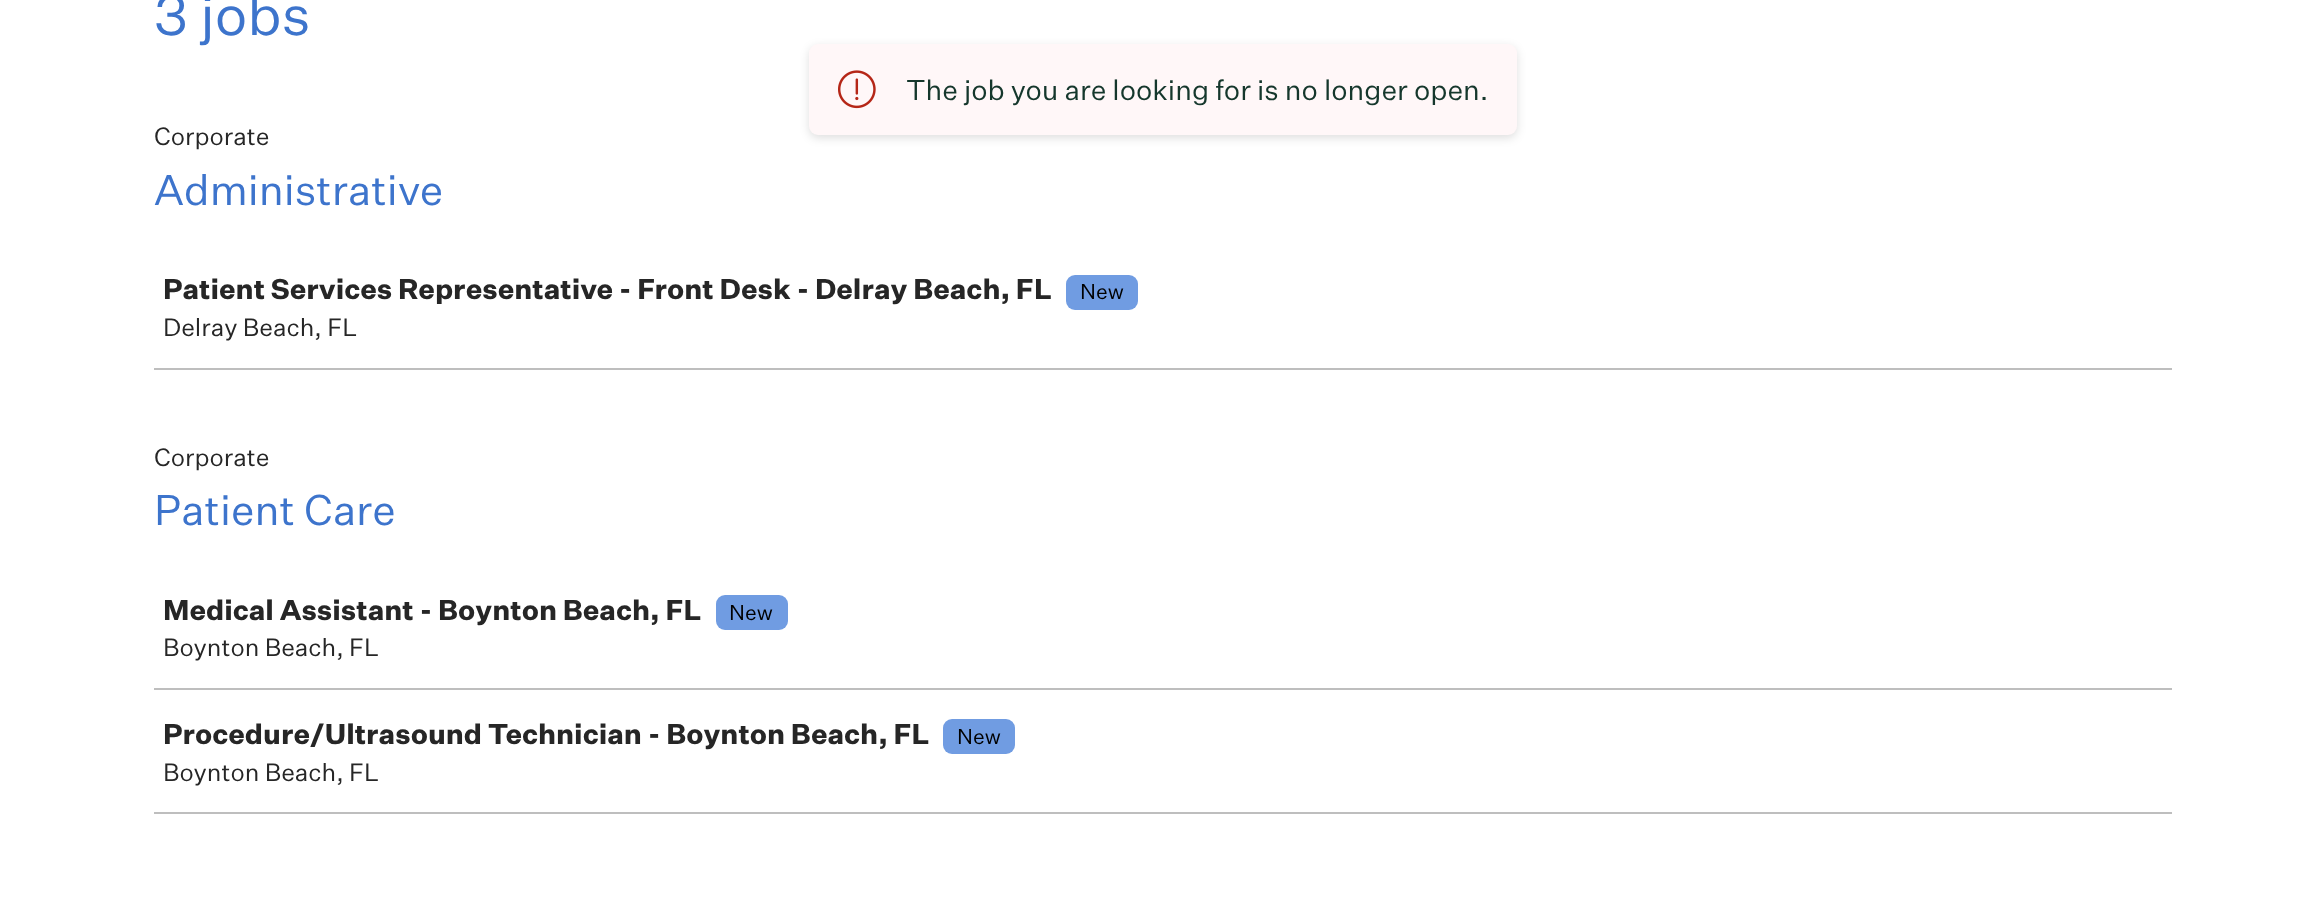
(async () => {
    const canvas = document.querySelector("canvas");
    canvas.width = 2324;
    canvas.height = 901;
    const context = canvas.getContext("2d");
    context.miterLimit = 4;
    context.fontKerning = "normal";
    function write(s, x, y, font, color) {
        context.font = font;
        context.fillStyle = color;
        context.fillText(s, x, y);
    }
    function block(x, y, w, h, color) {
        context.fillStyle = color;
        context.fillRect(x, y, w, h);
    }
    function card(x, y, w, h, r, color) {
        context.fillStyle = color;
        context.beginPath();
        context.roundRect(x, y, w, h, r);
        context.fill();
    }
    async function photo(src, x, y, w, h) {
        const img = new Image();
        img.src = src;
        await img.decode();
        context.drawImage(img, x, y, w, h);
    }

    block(0, 0, 2324, 901, "rgb(255, 255, 255)");
    write("3 jobs", 154, 35, "56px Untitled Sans", "rgb(61, 116, 204)");
    write("Corporate", 154, 145, "24.5px Untitled Sans", "rgb(38, 38, 38)");
    write("Administrative", 154, 205, "42px Untitled Sans", "rgb(61, 116, 204)");
    block(154, 368, 2018, 2, "rgb(190, 190, 190)");
    write("Patient Services Representative - Front Desk - Delray Beach, FL", 163, 299, "bold 28px Untitled Sans", "rgb(38, 38, 38)");
    card(1066, 275, 72, 35, 9, "rgb(112, 156, 226)");
    write("New", 1080, 299, "21px Untitled Sans", "rgb(0, 0, 0)");
    write("Delray Beach, FL", 163, 336, "24.5px Untitled Sans", "rgb(38, 38, 38)");
    write("Corporate", 154, 466, "24.5px Untitled Sans", "rgb(38, 38, 38)");
    write("Patient Care", 154, 525, "42px Untitled Sans", "rgb(61, 116, 204)");
    block(154, 688, 2018, 2, "rgb(190, 190, 190)");
    write("Medical Assistant - Boynton Beach, FL", 163, 620, "bold 28px Untitled Sans", "rgb(38, 38, 38)");
    card(716, 595, 72, 35, 9, "rgb(112, 156, 226)");
    write("New", 729, 620, "21px Untitled Sans", "rgb(0, 0, 0)");
    write("Boynton Beach, FL", 163, 656, "24.5px Untitled Sans", "rgb(38, 38, 38)");
    block(154, 812, 2018, 2, "rgb(190, 190, 190)");
    write("Procedure/Ultrasound Technician - Boynton Beach, FL", 163, 744, "bold 28px Untitled Sans", "rgb(38, 38, 38)");
    card(943, 719, 72, 35, 9, "rgb(112, 156, 226)");
    write("New", 957, 744, "21px Untitled Sans", "rgb(0, 0, 0)");
    write("Boynton Beach, FL", 163, 781, "24.5px Untitled Sans", "rgb(38, 38, 38)");
    context.fillStyle = "rgba(0, 0, 0, 0.13)";
    context.filter = "blur(5px)";
    context.beginPath();
    context.roundRect(809, 47, 708, 91, 9);
    context.fill();
    context.filter = "none";
    card(809, 44, 708, 91, 9, "rgb(255, 247, 248)");
    await photo("media/1.png", 838, 70, 38, 39);
    write("The job you are looking for is no longer open.", 906, 100, "28px Untitled Sans", "rgb(21, 55, 44)");
})();
